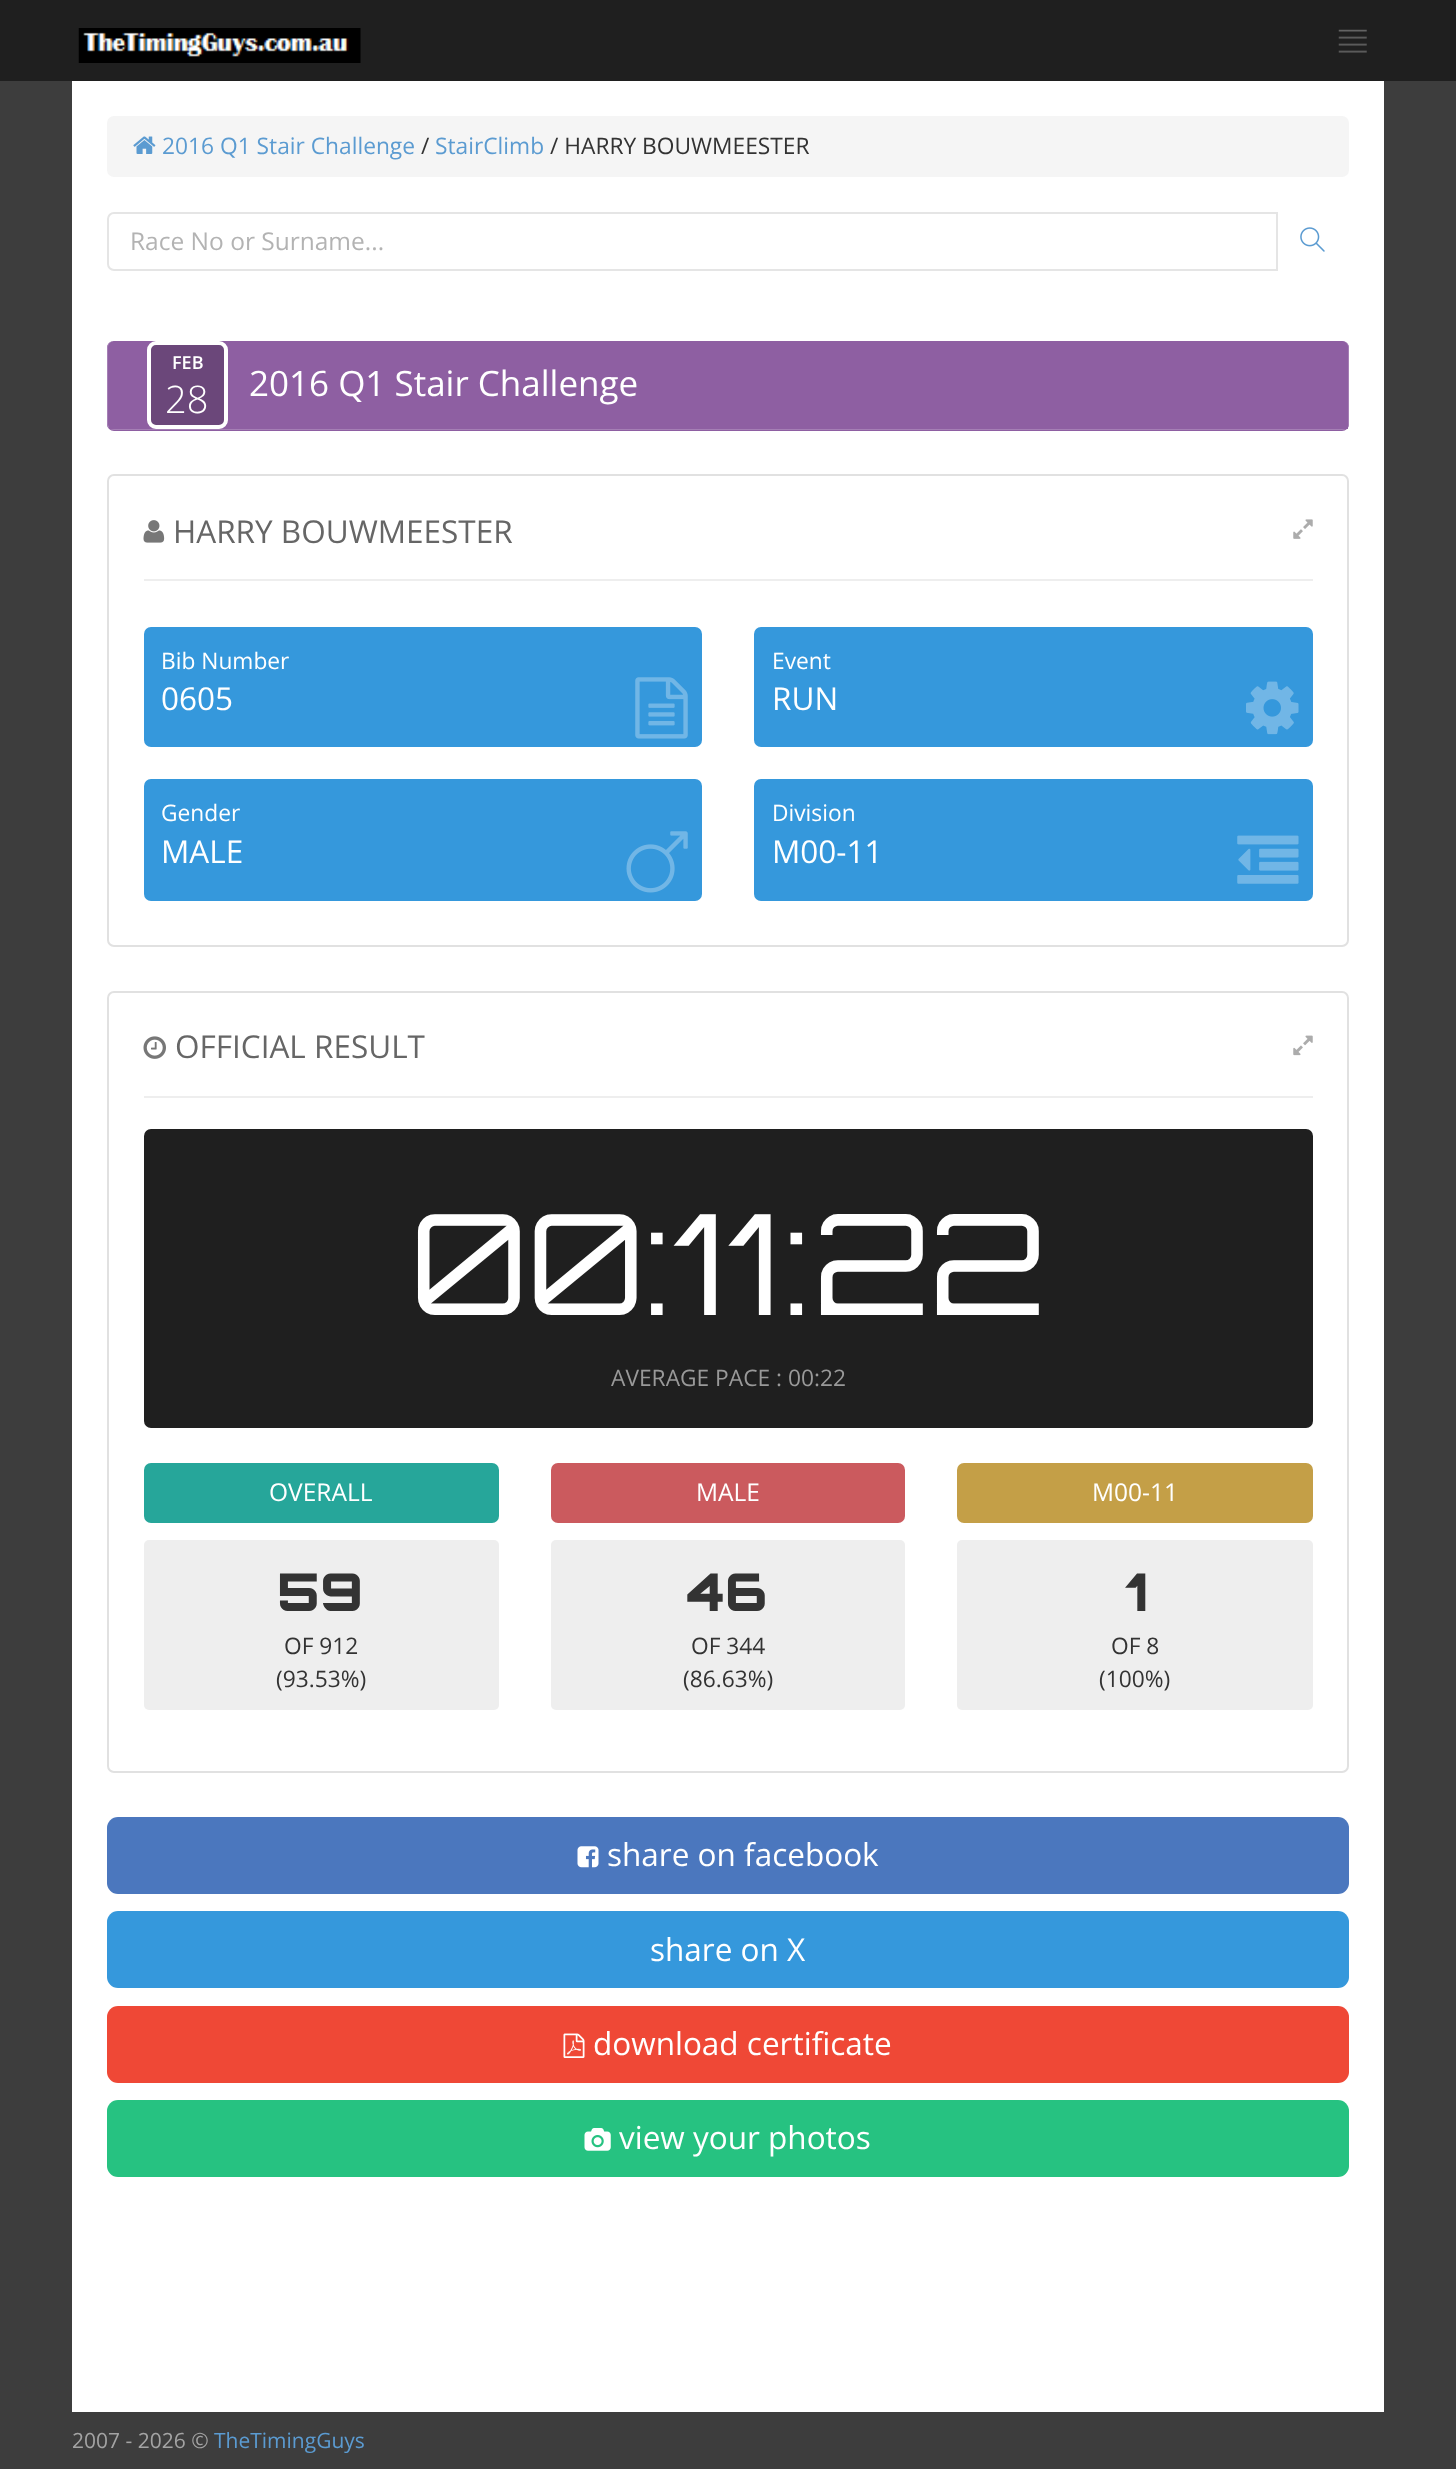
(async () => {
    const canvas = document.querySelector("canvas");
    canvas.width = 1456;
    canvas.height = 2469;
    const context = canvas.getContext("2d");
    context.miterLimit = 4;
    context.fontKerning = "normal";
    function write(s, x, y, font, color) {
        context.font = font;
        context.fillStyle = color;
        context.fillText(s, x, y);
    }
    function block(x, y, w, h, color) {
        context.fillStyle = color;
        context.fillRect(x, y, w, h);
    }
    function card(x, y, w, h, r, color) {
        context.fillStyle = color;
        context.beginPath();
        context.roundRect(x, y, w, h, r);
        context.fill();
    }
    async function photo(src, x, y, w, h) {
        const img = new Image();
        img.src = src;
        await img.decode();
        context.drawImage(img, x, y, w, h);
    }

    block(0, 0, 1456, 2469, "rgb(61, 61, 61)");
    block(0, 0, 1456, 81, "rgb(31, 31, 31)");
    await photo("media/1.png", 78, 28, 283, 35);
    await photo("media/2.png", 1338, 29, 29, 24);
    block(72, 81, 1312, 2331, "rgb(255, 255, 255)");
    card(107, 116, 1242, 61, 7, "rgb(245, 245, 245)");
    await photo("media/3.png", 133, 136, 23, 18);
    write("2016 Q1 Stair Challenge", 162, 154, "22.75px Open Sans", "rgb(91, 155, 209)");
    write("/", 421, 154, "22.75px Open Sans", "rgb(51, 51, 51)");
    write("StairClimb", 435, 154, "22.75px Open Sans", "rgb(91, 155, 209)");
    write("/ HARRY BOUWMEESTER", 550, 154, "22.75px Open Sans", "rgb(51, 51, 51)");
    context.beginPath();
    context.roundRect(108, 213, 1169, 57, [6, 0, 0, 6]);
    context.strokeStyle = "rgb(229, 229, 229)";
    context.lineWidth = 2;
    context.stroke();
    write("Race No or Surname...", 130, 250, "24.5px Open Sans", "rgb(179, 179, 179)");
    await photo("media/4.png", 1300, 227, 25, 25);
    card(107, 341, 1242, 90, 7, "rgb(142, 95, 162)");
    context.fillStyle = "rgb(165, 127, 181)";
    context.beginPath();
    context.moveTo(114, 341);
    context.lineTo(1342, 341);
    context.bezierCurveTo(1346, 341, 1349, 344, 1349, 348);
    context.lineTo(1349, 424);
    context.bezierCurveTo(1349, 427, 1346, 430, 1342, 430);
    context.lineTo(114, 430);
    context.bezierCurveTo(110, 430, 107, 427, 107, 424);
    context.lineTo(107, 348);
    context.bezierCurveTo(107, 344, 110, 341, 114, 341);
    context.closePath();
    context.moveTo(114, 341);
    context.lineTo(1342, 341);
    context.bezierCurveTo(1345, 341, 1348, 344, 1348, 348);
    context.lineTo(1348, 424);
    context.bezierCurveTo(1348, 426, 1345, 429, 1342, 429);
    context.lineTo(114, 429);
    context.bezierCurveTo(111, 429, 108, 426, 108, 424);
    context.lineTo(108, 348);
    context.bezierCurveTo(108, 344, 111, 341, 114, 341);
    context.closePath();
    context.fill("evenodd");
    context.fillStyle = "rgb(142, 95, 162)";
    context.beginPath();
    context.roundRect(109, 341, 1239, 88, [7, 7, 0, 0]);
    context.fill();
    context.fillStyle = "rgb(107, 71, 122)";
    context.beginPath();
    context.roundRect(149, 343, 77, 84, 7);
    context.fill();
    context.strokeStyle = "rgb(255, 255, 255)";
    context.lineWidth = 4;
    context.stroke();
    write("FEB", 172, 369, "600 18px Open Sans", "rgb(255, 255, 255)");
    write("28", 165, 413, "300 38px Open Sans", "rgb(255, 255, 255)");
    write("2016 Q1 Stair Challenge", 249, 396, "35px Open Sans", "rgb(255, 255, 255)");
    context.beginPath();
    context.roundRect(108, 475, 1240, 471, 6);
    context.strokeStyle = "rgb(225, 225, 225)";
    context.lineWidth = 2;
    context.stroke();
    block(144, 579, 1169, 2, "rgb(238, 238, 238)");
    await photo("media/5.png", 143, 520, 22, 23);
    write("HARRY BOUWMEESTER", 173, 543, "31.5px Open Sans", "rgb(102, 102, 102)");
    await photo("media/6.png", 1293, 519, 20, 20);
    card(144, 627, 558, 120, 7, "rgb(53, 152, 220)");
    write("Bib Number", 161, 669, "22.75px Open Sans", "rgb(255, 255, 255)");
    write("0605", 161, 710, "31.5px Open Sans", "rgb(255, 255, 255)");
    await photo("media/7.png", 635, 677, 53, 62);
    card(754, 627, 559, 120, 7, "rgb(53, 152, 220)");
    write("Event", 772, 669, "22.75px Open Sans", "rgb(255, 255, 255)");
    write("RUN", 772, 710, "31.5px Open Sans", "rgb(255, 255, 255)");
    await photo("media/8.png", 1246, 681, 53, 54);
    card(144, 779, 558, 122, 7, "rgb(53, 152, 220)");
    write("Gender", 161, 821, "22.75px Open Sans", "rgb(255, 255, 255)");
    write("MALE", 161, 863, "31.5px Open Sans", "rgb(255, 255, 255)");
    await photo("media/9.png", 626, 831, 62, 62);
    card(754, 779, 559, 122, 7, "rgb(53, 152, 220)");
    write("Division", 772, 821, "22.75px Open Sans", "rgb(255, 255, 255)");
    write("M00-11", 772, 863, "31.5px Open Sans", "rgb(255, 255, 255)");
    await photo("media/10.png", 1237, 835, 62, 49);
    context.beginPath();
    context.roundRect(108, 992, 1240, 780, 6);
    context.stroke();
    block(144, 1096, 1169, 2, "rgb(238, 238, 238)");
    await photo("media/11.png", 143, 1036, 23, 23);
    write("OFFICIAL RESULT", 175, 1058, "31.5px Open Sans", "rgb(102, 102, 102)");
    await photo("media/12.png", 1293, 1035, 20, 21);
    card(144, 1129, 1169, 299, 7, "rgb(31, 31, 31)");
    write("00:11:22", 410, 1315, "140px Orbitron", "rgb(255, 255, 255)");
    write("AVERAGE PACE : 00:22", 611, 1386, "22.75px Open Sans", "rgb(153, 153, 153)");
    card(144, 1463, 355, 60, 7, "rgb(38, 166, 154)");
    write("OVERALL", 269, 1501, "24.5px Open Sans", "rgb(255, 255, 255)");
    card(144, 1540, 355, 170, 5, "rgb(238, 238, 238)");
    write("59", 277, 1611, "900 52px Orbitron", "rgb(51, 51, 51)");
    write("OF 912", 284, 1654, "22.75px Open Sans", "rgb(51, 51, 51)");
    write("(93.53%)", 276, 1687, "22.75px Open Sans", "rgb(51, 51, 51)");
    card(551, 1463, 354, 60, 7, "rgb(203, 90, 94)");
    write("MALE", 696, 1501, "24.5px Open Sans", "rgb(255, 255, 255)");
    card(551, 1540, 354, 170, 5, "rgb(238, 238, 238)");
    write("46", 687, 1611, "900 52px Orbitron", "rgb(51, 51, 51)");
    write("OF 344", 691, 1654, "22.75px Open Sans", "rgb(51, 51, 51)");
    write("(86.63%)", 683, 1687, "22.75px Open Sans", "rgb(51, 51, 51)");
    card(957, 1463, 356, 60, 7, "rgb(196, 159, 71)");
    write("M00-11", 1092, 1501, "24.5px Open Sans", "rgb(255, 255, 255)");
    card(957, 1540, 356, 170, 5, "rgb(238, 238, 238)");
    write("1", 1125, 1611, "900 52px Orbitron", "rgb(51, 51, 51)");
    write("OF 8", 1111, 1654, "22.75px Open Sans", "rgb(51, 51, 51)");
    write("(100%)", 1099, 1687, "22.75px Open Sans", "rgb(51, 51, 51)");
    card(107, 1817, 1242, 77, 11, "rgb(75, 119, 190)");
    await photo("media/13.png", 577, 1846, 22, 22);
    write("share on facebook", 607, 1866, "31.5px Open Sans", "rgb(255, 255, 255)");
    card(107, 1911, 1242, 77, 11, "rgb(53, 152, 220)");
    write("share on X", 650, 1961, "31.5px Open Sans", "rgb(255, 255, 255)");
    card(107, 2006, 1242, 77, 11, "rgb(239, 72, 54)");
    await photo("media/14.png", 563, 2033, 22, 25);
    write("download certificate", 593, 2055, "31.5px Open Sans", "rgb(255, 255, 255)");
    card(107, 2100, 1242, 77, 11, "rgb(38, 194, 129)");
    await photo("media/15.png", 584, 2128, 27, 23);
    write("view your photos", 619, 2149, "31.5px Open Sans", "rgb(255, 255, 255)");
    write("2007 - 2026 ©", 72, 2448, "21px Open Sans", "rgb(163, 163, 163)");
    write("TheTimingGuys", 214, 2448, "21px Open Sans", "rgb(91, 155, 209)");
})();
